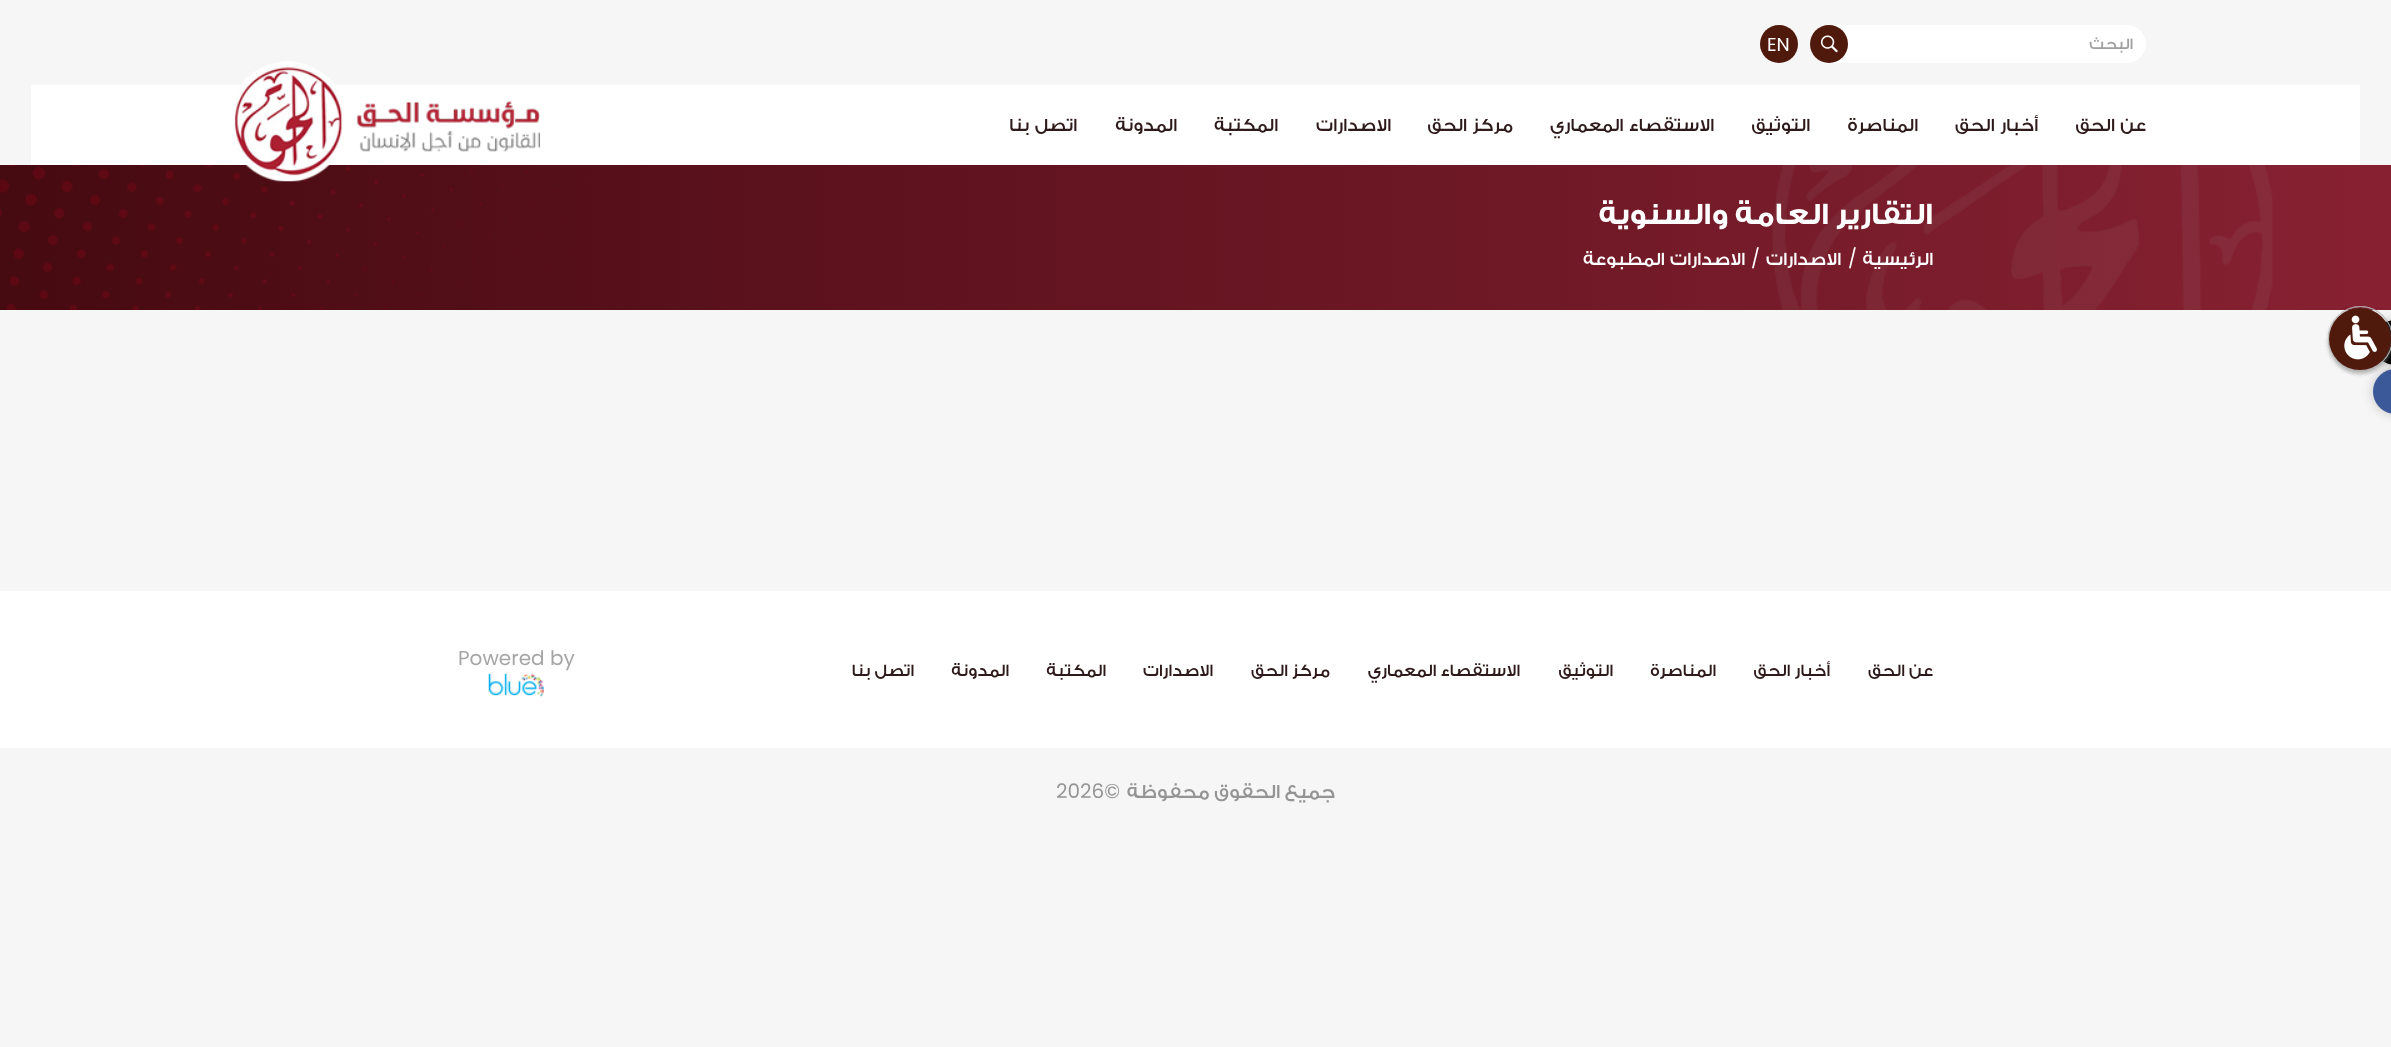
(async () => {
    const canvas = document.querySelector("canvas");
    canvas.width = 2391;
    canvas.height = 1047;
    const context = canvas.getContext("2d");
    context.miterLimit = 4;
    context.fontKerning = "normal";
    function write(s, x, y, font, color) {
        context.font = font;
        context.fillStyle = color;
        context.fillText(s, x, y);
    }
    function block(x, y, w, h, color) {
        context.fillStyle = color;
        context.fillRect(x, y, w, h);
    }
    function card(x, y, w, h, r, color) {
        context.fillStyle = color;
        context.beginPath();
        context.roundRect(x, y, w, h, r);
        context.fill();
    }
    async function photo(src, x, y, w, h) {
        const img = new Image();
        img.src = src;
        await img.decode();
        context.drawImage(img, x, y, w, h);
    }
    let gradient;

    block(0, 0, 2391, 1047, "rgb(246, 246, 246)");
    card(1810, 25, 336, 38, 19, "rgb(255, 255, 255)");
    context.direction = "rtl";
    write("البحث", 2133, 49, "500 16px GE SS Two", "rgb(159, 159, 159)");
    context.fillStyle = "rgb(79, 25, 12)";
    context.beginPath();
    context.arc(1829, 44, 19, 0, Math.PI * 2);
    context.fill();
    await photo("media/1.png", 1820, 35, 18, 18);
    context.beginPath();
    context.arc(1779, 44, 19, 0, Math.PI * 2);
    context.fill();
    context.direction = "ltr";
    write("EN", 1767, 51, "18.75px Poppins", "rgb(255, 255, 255)");
    block(31, 85, 2329, 80, "rgb(255, 255, 255)");
    context.wordSpacing = "1px";
    context.direction = "rtl";
    write("عن الحق", 2146, 131, "500 18.75px GE SS Two", "rgb(46, 26, 26)");
    write("أخبار الحق", 2038, 131, "500 18.75px GE SS Two", "rgb(46, 26, 26)");
    context.wordSpacing = "0px";
    write("المناصرة", 1918, 131, "500 18.75px GE SS Two", "rgb(46, 26, 26)");
    write("التوثيق", 1810, 131, "500 18.75px GE SS Two", "rgb(46, 26, 26)");
    context.wordSpacing = "1px";
    write("الاستقصاء المعماري", 1714, 131, "500 18.75px GE SS Two", "rgb(46, 26, 26)");
    write("مركز الحق", 1513, 131, "500 18.75px GE SS Two", "rgb(46, 26, 26)");
    context.wordSpacing = "0px";
    write("الاصدارات", 1391, 131, "500 18.75px GE SS Two", "rgb(46, 26, 26)");
    write("المكتبة", 1278, 131, "500 18.75px GE SS Two", "rgb(46, 26, 26)");
    write("المدونة", 1177, 131, "500 18.75px GE SS Two", "rgb(46, 26, 26)");
    context.wordSpacing = "1px";
    write("اتصل بنا", 1077, 131, "500 18.75px GE SS Two", "rgb(46, 26, 26)");
    gradient = context.createLinearGradient(2391, 237, 0, 238);
    gradient.addColorStop(0, "rgb(135, 33, 50)");
    gradient.addColorStop(1, "rgb(70, 10, 17)");
    context.fillStyle = gradient;
    context.fillRect(0, 165, 2391, 145);
    await photo("media/4.png", 0, 165, 640, 145);
    await photo("media/2.png", 234, 61, 306, 121);
    await photo("media/3.png", 1772, 165, 501, 145);
    context.wordSpacing = "0px";
    write("التقارير العامة والسنوية", 1933, 224, "bold 31.25px GE SS Two", "rgb(255, 255, 255)");
    write("الرئيسية", 1933, 265, "500 18.75px GE SS Two", "rgb(255, 255, 255)");
    context.direction = "ltr";
    write("/", 1848, 265, "18.75px Poppins", "rgb(255, 255, 255)");
    context.direction = "rtl";
    write("الاصدارات", 1841, 265, "500 18.75px GE SS Two", "rgb(255, 255, 255)");
    context.direction = "ltr";
    write("/", 1751, 265, "18.75px Poppins", "rgb(255, 255, 255)");
    context.wordSpacing = "1px";
    context.direction = "rtl";
    write("الاصدارات المطبوعة", 1745, 265, "500 18.75px GE SS Two", "rgb(255, 255, 255)");
    context.fillStyle = "rgba(0, 0, 0, 0.2)";
    context.filter = "blur(6px)";
    context.beginPath();
    context.roundRect(2373, 320, 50, 45, 22.5);
    context.fill();
    context.filter = "none";
    context.fillStyle = "rgb(0, 0, 0)";
    context.beginPath();
    context.moveTo(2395.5, 320);
    context.lineTo(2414, 320);
    context.lineTo(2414, 365);
    context.lineTo(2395.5, 365);
    context.bezierCurveTo(2383, 365, 2373, 355, 2373, 342.5);
    context.bezierCurveTo(2373, 330, 2383, 320, 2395.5, 320);
    context.closePath();
    context.fill();
    context.fillStyle = "rgba(0, 0, 0, 0.2)";
    context.filter = "blur(6px)";
    context.beginPath();
    context.roundRect(2373, 369, 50, 45, 22.5);
    context.fill();
    context.filter = "none";
    context.fillStyle = "rgb(59, 89, 152)";
    context.beginPath();
    context.moveTo(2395.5, 369);
    context.lineTo(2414, 369);
    context.lineTo(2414, 414);
    context.lineTo(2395.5, 414);
    context.bezierCurveTo(2383, 414, 2373, 404, 2373, 391.5);
    context.bezierCurveTo(2373, 379, 2383, 369, 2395.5, 369);
    context.closePath();
    context.fill();
    context.fillStyle = "rgba(140, 140, 140, 0.2)";
    context.filter = "blur(2px)";
    context.beginPath();
    context.roundRect(2329, 310, 62, 63, 31);
    context.fill();
    context.filter = "none";
    context.beginPath();
    context.arc(2360.5, 338.5, 32, 0, Math.PI * 2);
    context.strokeStyle = "rgba(183, 183, 183, 0.2)";
    context.stroke();
    context.filter = "blur(2px)";
    context.beginPath();
    context.roundRect(2329, 310, 62, 63, 31);
    context.fill();
    context.filter = "none";
    context.beginPath();
    context.arc(2360.5, 338.5, 32, 0, Math.PI * 2);
    context.stroke();
    context.filter = "blur(2px)";
    context.beginPath();
    context.roundRect(2329, 310, 62, 63, 31);
    context.fill();
    context.filter = "none";
    context.beginPath();
    context.arc(2360.5, 338.5, 32, 0, Math.PI * 2);
    context.stroke();
    context.filter = "blur(2px)";
    context.beginPath();
    context.roundRect(2329, 310, 62, 63, 31);
    context.fill();
    context.filter = "none";
    context.beginPath();
    context.arc(2360.5, 338.5, 32, 0, Math.PI * 2);
    context.stroke();
    context.filter = "blur(2px)";
    context.beginPath();
    context.roundRect(2329, 310, 62, 63, 31);
    context.fill();
    context.filter = "none";
    context.beginPath();
    context.arc(2360.5, 338.5, 32, 0, Math.PI * 2);
    context.stroke();
    context.beginPath();
    context.arc(2360.5, 338.5, 32, 0, Math.PI * 2);
    context.stroke();
    context.beginPath();
    context.arc(2360.5, 338.5, 32, 0, Math.PI * 2);
    context.stroke();
    context.beginPath();
    context.arc(2360.5, 338.5, 32, 0, Math.PI * 2);
    context.stroke();
    context.beginPath();
    context.arc(2360.5, 338.5, 32, 0, Math.PI * 2);
    context.stroke();
    context.fillStyle = "rgb(79, 25, 12)";
    context.beginPath();
    context.arc(2360, 339, 31, 0, Math.PI * 2);
    context.fill();
    await photo("media/5.png", 2344, 315, 33, 45);
    block(0, 591, 2391, 157, "rgb(255, 255, 255)");
    context.wordSpacing = "0px";
    write("عن الحق", 1933, 676, "500 17.5px GE SS Two", "rgb(46, 26, 26)");
    write("أخبار الحق", 1830, 676, "500 17.5px GE SS Two", "rgb(46, 26, 26)");
    write("المناصرة", 1716, 676, "500 17.5px GE SS Two", "rgb(46, 26, 26)");
    write("التوثيق", 1613, 676, "500 17.5px GE SS Two", "rgb(46, 26, 26)");
    write("الاستقصاء المعماري", 1520, 676, "500 17.5px GE SS Two", "rgb(46, 26, 26)");
    write("مركز الحق", 1330, 676, "500 17.5px GE SS Two", "rgb(46, 26, 26)");
    write("الاصدارات", 1213, 676, "500 17.5px GE SS Two", "rgb(46, 26, 26)");
    write("المكتبة", 1106, 676, "500 17.5px GE SS Two", "rgb(46, 26, 26)");
    write("المدونة", 1009, 676, "500 17.5px GE SS Two", "rgb(46, 26, 26)");
    write("اتصل بنا", 914, 676, "500 17.5px GE SS Two", "rgb(46, 26, 26)");
    context.direction = "ltr";
    write("Powered by", 458, 665, "20px Poppins", "rgb(166, 166, 166)");
    await photo("media/6.png", 488, 673, 56, 24);
    context.direction = "rtl";
    write("جميع الحقوق محفوظة", 1335, 798, "500 20px GE SS Two", "rgb(148, 148, 148)");
    write("©", 1120, 798, "20px Poppins", "rgb(148, 148, 148)");
    context.direction = "ltr";
    write("2026", 1056, 798, "20px Poppins", "rgb(148, 148, 148)");
})();
